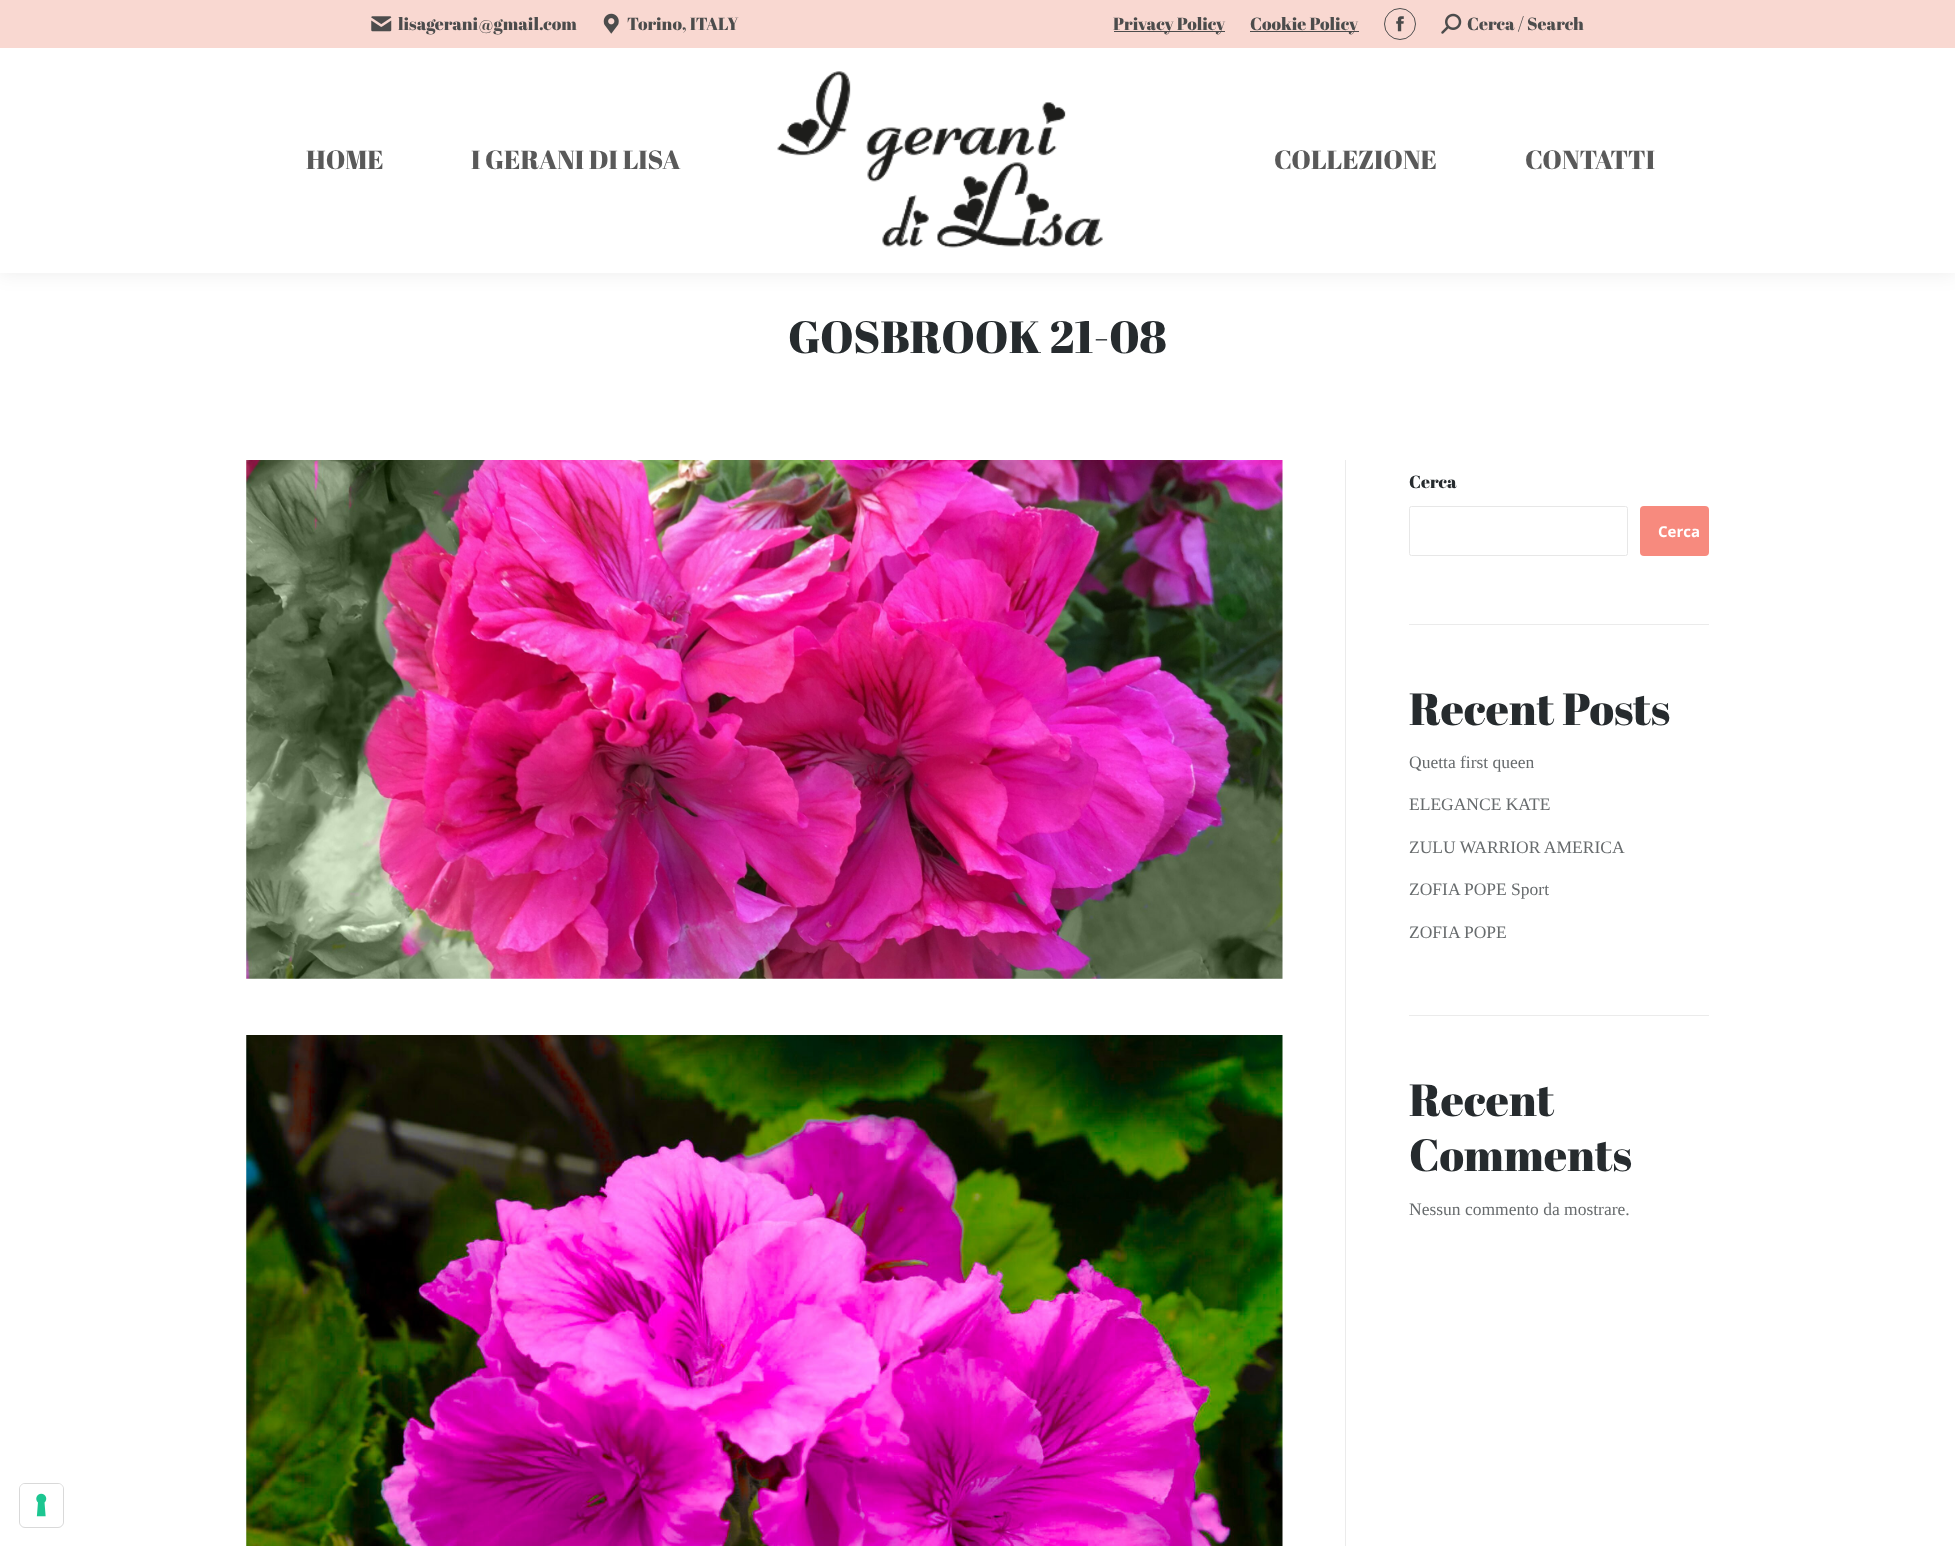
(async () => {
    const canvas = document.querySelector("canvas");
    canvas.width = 1955;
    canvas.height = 1546;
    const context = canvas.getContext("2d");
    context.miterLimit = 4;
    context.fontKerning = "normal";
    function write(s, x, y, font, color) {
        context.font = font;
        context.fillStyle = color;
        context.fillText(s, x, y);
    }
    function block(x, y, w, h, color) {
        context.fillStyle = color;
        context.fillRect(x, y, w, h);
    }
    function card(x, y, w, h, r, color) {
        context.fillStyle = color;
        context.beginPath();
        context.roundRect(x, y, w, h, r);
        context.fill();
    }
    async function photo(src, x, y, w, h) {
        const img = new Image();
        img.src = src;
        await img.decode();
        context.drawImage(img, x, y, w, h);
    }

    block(0, 0, 1955, 1546, "rgb(255, 255, 255)");
    context.fillStyle = "rgba(0, 0, 0, 0.07)";
    context.filter = "blur(9.5px)";
    context.beginPath();
    context.rect(-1, -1, 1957, 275);
    context.fill();
    context.filter = "none";
    block(0, 48, 1955, 225, "rgb(255, 255, 255)");
    block(0, 0, 1955, 48, "rgb(249, 216, 209)");
    await photo("media/1.png", 371, 16, 21, 16);
    write("lisagerani@gmail.com", 398, 30, "17.5px Abril Fatface", "rgb(76, 76, 76)");
    await photo("media/2.png", 603, 13, 16, 21);
    write("Torino, ITALY", 627, 30, "17.5px Abril Fatface", "rgb(76, 76, 76)");
    block(1114, 31, 111, 1, "rgb(76, 76, 76)");
    write("Privacy Policy", 1113, 30, "17.5px Abril Fatface", "rgb(76, 76, 76)");
    block(1250, 31, 109, 1, "rgb(76, 76, 76)");
    write("Cookie Policy", 1250, 30, "17.5px Abril Fatface", "rgb(76, 76, 76)");
    context.beginPath();
    context.arc(1400, 24, 15.5, 0, Math.PI * 2);
    context.strokeStyle = "rgb(79, 79, 79)";
    context.stroke();
    await photo("media/3.png", 1396, 16, 8, 16);
    await photo("media/4.png", 1441, 13, 21, 21);
    write("Cerca / Search", 1467, 30, "17.5px Abril Fatface", "rgb(76, 76, 76)");
    write("HOME", 306, 169, "26.25px Abril Fatface", "rgb(89, 89, 89)");
    write("I GERANI DI LISA", 471, 169, "26.25px Abril Fatface", "rgb(89, 89, 89)");
    await photo("media/5.png", 777, 71, 326, 177);
    write("COLLEZIONE", 1274, 169, "26.25px Abril Fatface", "rgb(89, 89, 89)");
    write("CONTATTI", 1525, 169, "26.25px Abril Fatface", "rgb(89, 89, 89)");
    write("GOSBROOK 21-08", 788, 353, "45px Abril Fatface", "rgb(38, 43, 46)");
    await photo("media/6.png", 246, 460, 1037, 519);
    await photo("media/7.png", 246, 1035, 1037, 511);
    block(1345, 460, 1, 1086, "rgb(235, 235, 235)");
    write("Cerca", 1409, 488, "17.5px Abril Fatface", "rgb(38, 43, 46)");
    context.beginPath();
    context.roundRect(1409.5, 506.5, 218, 49, 2);
    context.strokeStyle = "rgb(231, 231, 231)";
    context.stroke();
    card(1640, 506, 69, 50, 4, "rgb(247, 138, 126)");
    write("Cerca", 1658, 537, "bold 15px Open Sans", "rgb(255, 255, 255)");
    block(1409, 624, 300, 1, "rgb(235, 235, 235)");
    write("Recent Posts", 1409, 725, "45px Abril Fatface", "rgb(38, 43, 46)");
    write("Quetta first queen", 1409, 768, "17.5px Liberation Serif", "rgb(103, 107, 109)");
    write("ELEGANCE KATE", 1409, 810, "17.5px Liberation Serif", "rgb(103, 107, 109)");
    write("ZULU WARRIOR AMERICA", 1409, 853, "17.5px Liberation Serif", "rgb(103, 107, 109)");
    write("ZOFIA POPE Sport", 1409, 895, "17.5px Liberation Serif", "rgb(103, 107, 109)");
    write("ZOFIA POPE", 1409, 938, "17.5px Liberation Serif", "rgb(103, 107, 109)");
    block(1409, 1015, 300, 1, "rgb(235, 235, 235)");
    write("Recent", 1409, 1116, "45px Abril Fatface", "rgb(38, 43, 46)");
    write("Comments", 1409, 1171, "45px Abril Fatface", "rgb(38, 43, 46)");
    write("Nessun commento da mostrare.", 1409, 1215, "17.5px Liberation Serif", "rgb(103, 107, 109)");
    context.beginPath();
    context.roundRect(19.5, 1483.5, 44, 44, 5.5);
    context.strokeStyle = "rgb(217, 217, 217)";
    context.stroke();
    card(20, 1484, 43, 42, 5, "rgb(255, 255, 255)");
    await photo("media/8.png", 36, 1493, 11, 24);
})();
